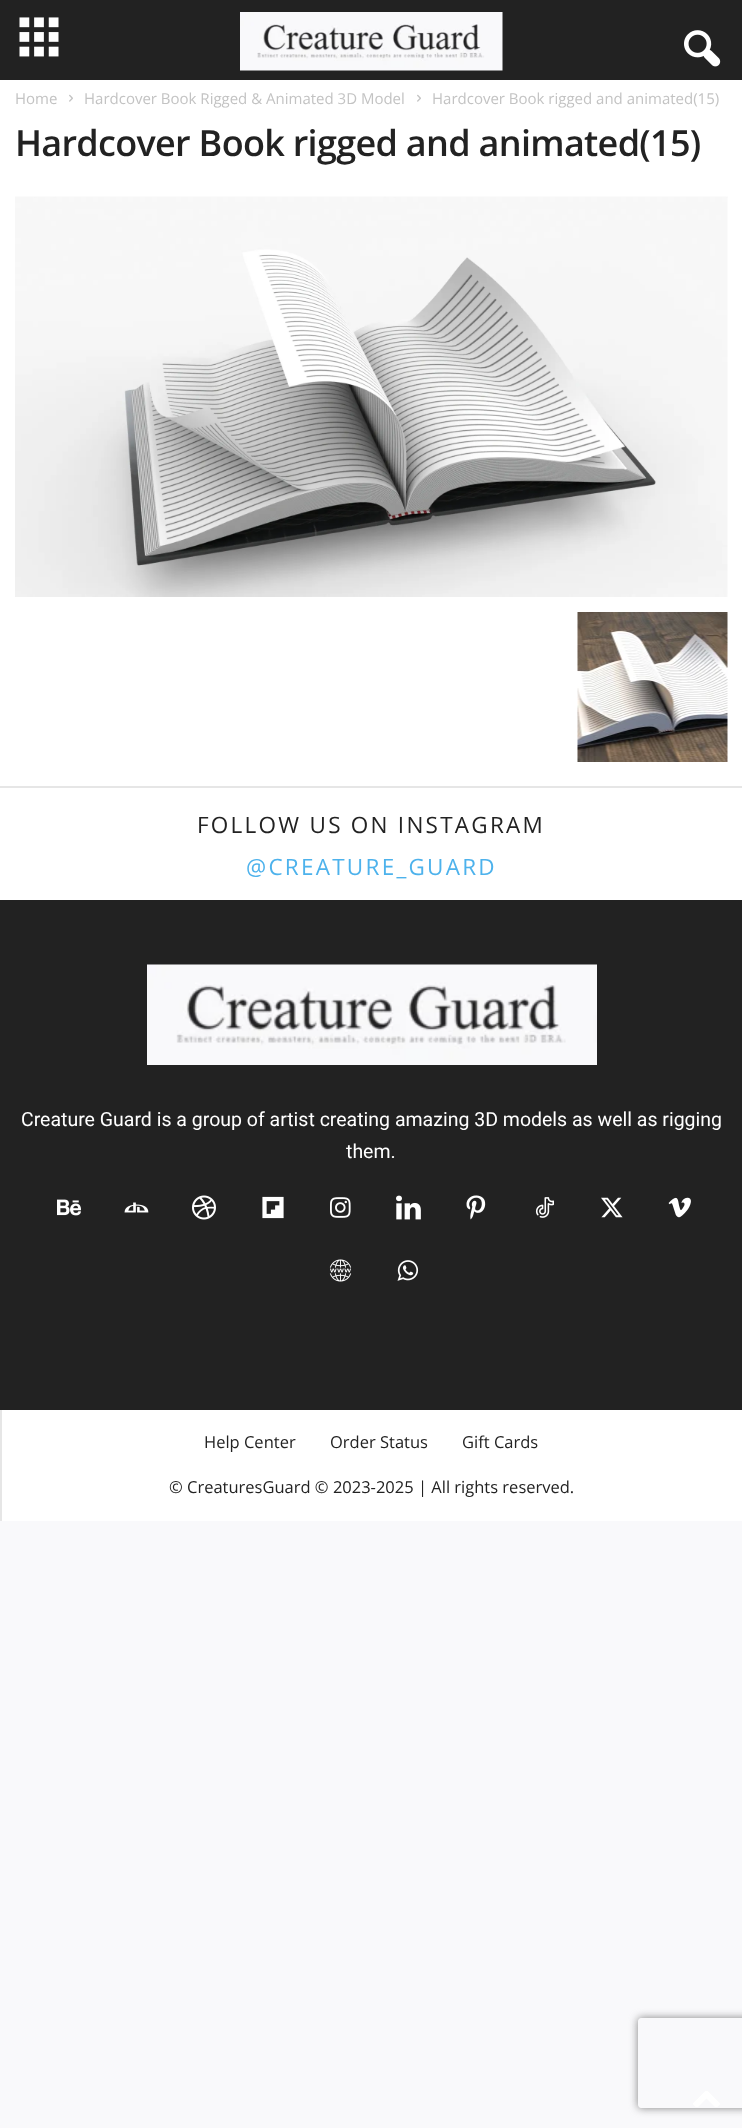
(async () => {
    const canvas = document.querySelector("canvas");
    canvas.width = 742;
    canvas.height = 2128;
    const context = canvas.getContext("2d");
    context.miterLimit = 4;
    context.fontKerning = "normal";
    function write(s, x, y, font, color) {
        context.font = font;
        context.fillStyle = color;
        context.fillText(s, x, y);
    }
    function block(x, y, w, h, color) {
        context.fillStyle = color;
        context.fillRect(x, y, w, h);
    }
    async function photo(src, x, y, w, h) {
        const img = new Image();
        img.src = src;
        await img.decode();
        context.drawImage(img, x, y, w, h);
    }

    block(0, 0, 742, 2128, "rgb(249, 249, 251)");
    block(0, 0, 742, 80, "rgb(34, 34, 34)");
    await photo("media/1.png", 19, 17, 40, 40);
    await photo("media/2.png", 240, 12, 263, 59);
    await photo("media/3.png", 684, 30, 37, 37);
    block(0, 80, 742, 706, "rgb(255, 255, 255)");
    block(0, 786, 742, 2, "rgb(230, 230, 230)");
    write("Home", 15, 104, "15px Open Sans", "rgb(195, 195, 195)");
    await photo("media/4.png", 69, 94, 4, 8);
    write("Hardcover Book Rigged & Animated 3D Model", 84, 104, "15px Open Sans", "rgb(195, 195, 195)");
    await photo("media/4.png", 417, 94, 4, 8);
    write("Hardcover Book rigged and animated(15)", 432, 104, "15px Open Sans", "rgb(195, 195, 195)");
    context.letterSpacing = "-0.7px";
    write("Hardcover Book rigged and animated(15)", 15, 156, "600 36px Open Sans", "rgb(34, 34, 34)");
    await photo("media/5.png", 15, 196, 713, 401);
    await photo("media/6.png", 577, 612, 151, 150);
    block(0, 788, 742, 112, "rgb(255, 255, 255)");
    context.letterSpacing = "2.25px";
    write("FOLLOW US ON INSTAGRAM", 197, 833, "22.5px Open Sans", "rgb(34, 34, 34)");
    write("@CREATURE_GUARD", 246, 875, "22.5px Open Sans", "rgb(77, 178, 236)");
    block(0, 900, 742, 510, "rgb(34, 34, 34)");
    await photo("media/7.png", 147, 964, 450, 101);
    context.letterSpacing = "0px";
    write("Creature Guard is a group of artist creating amazing 3D models as well as rigging", 21, 1126, "19.5px Roboto", "rgb(255, 255, 255)");
    write("them.", 346, 1158, "19.5px Roboto", "rgb(255, 255, 255)");
    await photo("media/8.png", 57, 1199, 24, 17);
    await photo("media/9.png", 124, 1202, 25, 11);
    await photo("media/10.png", 192, 1195, 24, 25);
    await photo("media/11.png", 262, 1196, 22, 23);
    await photo("media/12.png", 330, 1197, 21, 21);
    await photo("media/13.png", 396, 1195, 25, 25);
    await photo("media/14.png", 466, 1195, 20, 25);
    await photo("media/15.png", 535, 1197, 19, 21);
    await photo("media/16.png", 601, 1197, 22, 21);
    await photo("media/17.png", 668, 1197, 23, 21);
    await photo("media/18.png", 329, 1259, 23, 23);
    await photo("media/19.png", 397, 1260, 22, 21);
    block(2, 1410, 740, 111, "rgb(255, 255, 255)");
    block(0, 1410, 2, 111, "rgb(230, 230, 230)");
    write("Help Center", 204, 1448, "16.5px Open Sans", "rgb(34, 34, 34)");
    write("Order Status", 330, 1448, "16.5px Open Sans", "rgb(34, 34, 34)");
    write("Gift Cards", 462, 1448, "16.5px Open Sans", "rgb(34, 34, 34)");
    write("© CreaturesGuard © 2023-2025 | All rights reserved.", 169, 1493, "16.5px Open Sans", "rgb(34, 34, 34)");
    await photo("media/20.png", 693, 2091, 27, 16);
    context.save();
    context.beginPath();
    context.moveTo(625, 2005);
    context.lineTo(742, 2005);
    context.lineTo(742, 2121);
    context.lineTo(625, 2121);
    context.closePath();
    context.moveTo(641, 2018);
    context.lineTo(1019, 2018);
    context.bezierCurveTo(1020.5, 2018, 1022, 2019.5, 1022, 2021);
    context.lineTo(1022, 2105);
    context.bezierCurveTo(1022, 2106.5, 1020.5, 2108, 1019, 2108);
    context.lineTo(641, 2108);
    context.bezierCurveTo(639.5, 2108, 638, 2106.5, 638, 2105);
    context.lineTo(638, 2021);
    context.bezierCurveTo(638, 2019.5, 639.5, 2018, 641, 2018);
    context.closePath();
    context.clip("evenodd");
    context.fillStyle = "rgb(128, 128, 128)";
    context.filter = "blur(4px)";
    context.beginPath();
    context.roundRect(638, 2018, 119, 90, 3);
    context.fill();
    context.filter = "none";
    context.restore();
})();
